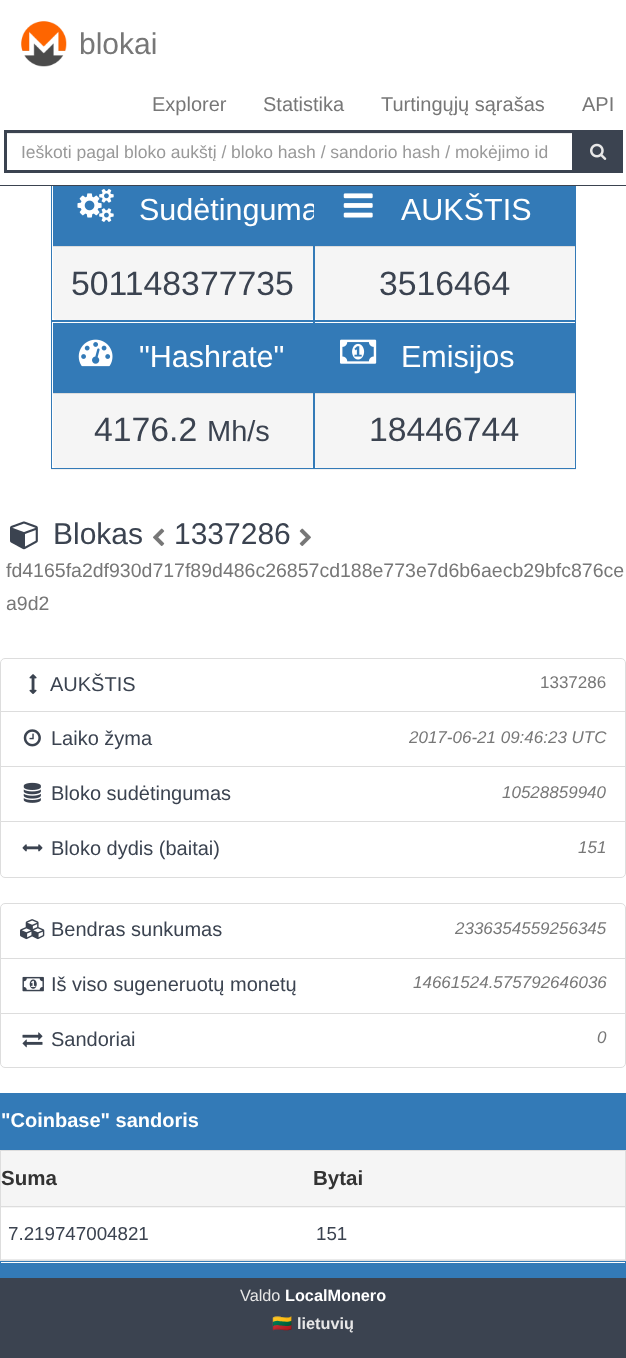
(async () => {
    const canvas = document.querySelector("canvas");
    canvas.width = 626;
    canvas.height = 1358;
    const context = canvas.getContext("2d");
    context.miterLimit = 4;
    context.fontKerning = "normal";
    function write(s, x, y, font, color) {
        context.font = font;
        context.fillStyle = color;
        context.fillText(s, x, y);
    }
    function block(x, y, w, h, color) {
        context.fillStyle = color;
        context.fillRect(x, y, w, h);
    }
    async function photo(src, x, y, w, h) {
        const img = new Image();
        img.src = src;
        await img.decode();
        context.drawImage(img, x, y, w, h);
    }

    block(0, 0, 626, 1358, "rgb(255, 255, 255)");
    context.strokeStyle = "rgb(51, 122, 183)";
    context.strokeRect(51.5, 175.5, 262, 145);
    block(53, 186, 260, 60, "rgb(51, 122, 183)");
    write("Sudėtinguma", 139, 220, "30.5px Liberation Sans", "rgb(255, 255, 255)");
    context.strokeRect(314.5, 175.5, 261, 145);
    block(51, 175, 525, 10, "rgb(255, 255, 255)");
    block(0, 185, 626, 1, "rgb(59, 67, 80)");
    await photo("media/1.png", 21, 21, 46, 46);
    write("blokai", 79, 54, "30px Liberation Sans", "rgb(119, 119, 119)");
    write("Explorer", 152, 111, "20px Liberation Sans", "rgb(119, 119, 119)");
    write("Statistika", 263, 111, "20px Liberation Sans", "rgb(119, 119, 119)");
    write("Turtingųjų sąrašas", 381, 111, "20px Liberation Sans", "rgb(119, 119, 119)");
    write("API", 582, 111, "20px Liberation Sans", "rgb(119, 119, 119)");
    block(6, 133, 567, 1, "rgb(236, 236, 236)");
    context.strokeStyle = "rgb(59, 67, 80)";
    context.lineWidth = 3;
    context.strokeRect(5.5, 131.5, 568, 40);
    context.save();
    context.beginPath();
    context.rect(21, 141, 537, 20);
    context.clip();
    write("Ieškoti pagal bloko aukštį / bloko hash / sandorio hash / mokėjimo id", 21, 158, "17.5px Liberation Sans", "rgb(153, 153, 153)");
    context.restore();
    block(575, 130, 48, 43, "rgb(59, 67, 80)");
    await photo("media/2.png", 590, 143, 17, 17);
    await photo("media/3.png", 77, 188, 37, 34);
    context.fillStyle = "rgb(245, 245, 245)";
    context.beginPath();
    context.roundRect(53, 246, 260, 74, [0, 0, 4, 4]);
    context.fill();
    block(53, 246, 260, 1, "rgb(221, 221, 221)");
    write("501148377735", 71, 295, "33.75px Liberation Sans", "rgb(59, 67, 80)");
    block(315, 186, 260, 60, "rgb(51, 122, 183)");
    await photo("media/4.png", 343, 193, 30, 25);
    write("AUKŠTIS", 401, 220, "30.5px Liberation Sans", "rgb(255, 255, 255)");
    context.fillStyle = "rgb(245, 245, 245)";
    context.beginPath();
    context.roundRect(315, 246, 260, 74, [0, 0, 4, 4]);
    context.fill();
    block(315, 246, 260, 1, "rgb(221, 221, 221)");
    write("3516464", 379, 295, "33.75px Liberation Sans", "rgb(59, 67, 80)");
    context.fillStyle = "rgba(0, 0, 0, 0.05)";
    context.filter = "blur(0.5px)";
    context.beginPath();
    context.rect(51, 323, 263, 147);
    context.fill();
    context.filter = "none";
    block(52, 323, 261, 145, "rgb(255, 255, 255)");
    context.strokeStyle = "rgb(51, 122, 183)";
    context.lineWidth = 1;
    context.strokeRect(51.5, 321.5, 262, 147);
    block(53, 323, 260, 70, "rgb(51, 122, 183)");
    await photo("media/5.png", 78, 339, 35, 28);
    write("\"Hashrate\"", 139, 367, "30.5px Liberation Sans", "rgb(255, 255, 255)");
    context.fillStyle = "rgb(245, 245, 245)";
    context.beginPath();
    context.roundRect(53, 393, 260, 75, [0, 0, 4, 4]);
    context.fill();
    block(53, 393, 260, 1, "rgb(221, 221, 221)");
    write("4176.2", 94, 441, "33.75px Liberation Sans", "rgb(59, 67, 80)");
    write("Mh/s", 207, 441, "29px Liberation Sans", "rgb(59, 67, 80)");
    context.fillStyle = "rgba(0, 0, 0, 0.05)";
    context.filter = "blur(0.5px)";
    context.beginPath();
    context.rect(314, 323, 262, 147);
    context.fill();
    context.filter = "none";
    block(315, 323, 260, 145, "rgb(255, 255, 255)");
    context.strokeRect(314.5, 321.5, 261, 147);
    block(315, 323, 260, 70, "rgb(51, 122, 183)");
    await photo("media/6.png", 340, 339, 37, 25);
    write("Emisijos", 401, 367, "30.5px Liberation Sans", "rgb(255, 255, 255)");
    context.fillStyle = "rgb(245, 245, 245)";
    context.beginPath();
    context.roundRect(315, 393, 260, 75, [0, 0, 4, 4]);
    context.fill();
    block(315, 393, 260, 1, "rgb(221, 221, 221)");
    write("18446744", 369, 441, "33.75px Liberation Sans", "rgb(59, 67, 80)");
    await photo("media/7.png", 10, 521, 28, 29);
    write("Blokas", 53, 544, "30px Liberation Sans", "rgb(59, 67, 80)");
    await photo("media/8.png", 153, 528, 12, 18);
    write("1337286", 174, 544, "30px Liberation Sans", "rgb(59, 67, 80)");
    await photo("media/9.png", 299, 528, 12, 18);
    write("fd4165fa2df930d717f89d486c26857cd188e773e7d6b6aecb29bfc876ce", 6, 577, "19.5px Liberation Sans", "rgb(119, 119, 119)");
    write("a9d2", 6, 610, "19.5px Liberation Sans", "rgb(119, 119, 119)");
    context.beginPath();
    context.roundRect(0.5, 658.5, 625, 54, [4.5, 4.5, 0, 0]);
    context.strokeStyle = "rgb(221, 221, 221)";
    context.stroke();
    await photo("media/10.png", 29, 674, 8, 20);
    write("AUKŠTIS", 50, 691, "20px Liberation Sans", "rgb(59, 67, 80)");
    write("1337286", 540, 688, "17px Liberation Sans", "rgb(119, 119, 119)");
    block(1, 712, 624, 1, "rgb(255, 255, 255)");
    context.strokeRect(0.5, 711.5, 625, 56);
    await photo("media/11.png", 23, 729, 18, 18);
    write("Laiko žyma", 51, 745, "20px Liberation Sans", "rgb(59, 67, 80)");
    write("2017-06-21 09:46:23 UTC", 409, 743, "italic 17px Liberation Sans", "rgb(119, 119, 119)");
    block(1, 767, 624, 1, "rgb(255, 255, 255)");
    context.strokeRect(0.5, 766.5, 625, 56);
    await photo("media/12.png", 23, 782, 18, 21);
    write("Bloko sudėtingumas", 51, 800, "20px Liberation Sans", "rgb(59, 67, 80)");
    write("10528859940", 502, 798, "italic 17px Liberation Sans", "rgb(119, 119, 119)");
    context.fillStyle = "rgb(255, 255, 255)";
    context.beginPath();
    context.roundRect(0.5, 821.5, 625, 56, [0, 0, 4.5, 4.5]);
    context.fill();
    context.stroke();
    await photo("media/13.png", 22, 844, 21, 8);
    write("Bloko dydis (baitai)", 51, 855, "20px Liberation Sans", "rgb(59, 67, 80)");
    write("151", 578, 853, "italic 17px Liberation Sans", "rgb(119, 119, 119)");
    context.beginPath();
    context.roundRect(0.5, 903.5, 625, 55, [4.5, 4.5, 0, 0]);
    context.stroke();
    await photo("media/14.png", 20, 919, 25, 21);
    write("Bendras sunkumas", 51, 936, "20px Liberation Sans", "rgb(59, 67, 80)");
    write("2336354559256345", 455, 934, "italic 17px Liberation Sans", "rgb(119, 119, 119)");
    context.strokeRect(0.5, 958.5, 625, 55);
    await photo("media/15.png", 22, 976, 22, 16);
    write("Iš viso sugeneruotų monetų", 51, 991, "20px Liberation Sans", "rgb(59, 67, 80)");
    write("14661524.575792646036", 413, 988, "italic 17px Liberation Sans", "rgb(119, 119, 119)");
    context.fillStyle = "rgb(255, 255, 255)";
    context.beginPath();
    context.roundRect(0.5, 1013.5, 625, 54, [0, 0, 4.5, 4.5]);
    context.fill();
    context.stroke();
    await photo("media/16.png", 22, 1032, 21, 16);
    write("Sandoriai", 51, 1046, "20px Liberation Sans", "rgb(59, 67, 80)");
    write("0", 597, 1043, "italic 17px Liberation Sans", "rgb(119, 119, 119)");
    context.strokeStyle = "rgb(51, 122, 183)";
    context.strokeRect(0.5, 1093.5, 625, 56);
    block(1, 1094, 624, 55, "rgb(51, 122, 183)");
    write("\"Coinbase\" sandoris", 1, 1127, "bold 20px Liberation Sans", "rgb(255, 255, 255)");
    context.strokeStyle = "rgb(221, 221, 221)";
    context.strokeRect(0.5, 1150.5, 625, 110);
    block(1, 1151, 624, 57, "rgb(245, 245, 245)");
    block(1, 1206, 624, 1, "rgb(221, 221, 221)");
    write("Suma", 1, 1185, "bold 20.5px Liberation Sans", "rgb(51, 51, 51)");
    write("Bytai", 313, 1185, "bold 20.5px Liberation Sans", "rgb(51, 51, 51)");
    block(1, 1259, 624, 1, "rgb(234, 234, 234)");
    write("7.219747004821", 8, 1240, "18.75px Liberation Sans", "rgb(59, 67, 80)");
    write("151", 316, 1240, "18.75px Liberation Sans", "rgb(59, 67, 80)");
    context.strokeStyle = "rgb(51, 122, 183)";
    context.strokeRect(0.5, 1261.5, 625, 57);
    block(1, 1263, 624, 15, "rgb(51, 122, 183)");
    block(0, 1278, 626, 80, "rgb(59, 67, 80)");
    write("Valdo", 240, 1301, "16.25px Liberation Sans", "rgb(231, 231, 231)");
    write("LocalMonero", 285, 1301, "bold 16.25px Liberation Sans", "rgb(255, 255, 255)");
    write("🇱🇹", 272, 1329, "bold 16.25px Noto Color Emoji", "rgb(231, 231, 231)");
    write("lietuvių", 297, 1329, "bold 16.25px Liberation Sans", "rgb(231, 231, 231)");
})();
